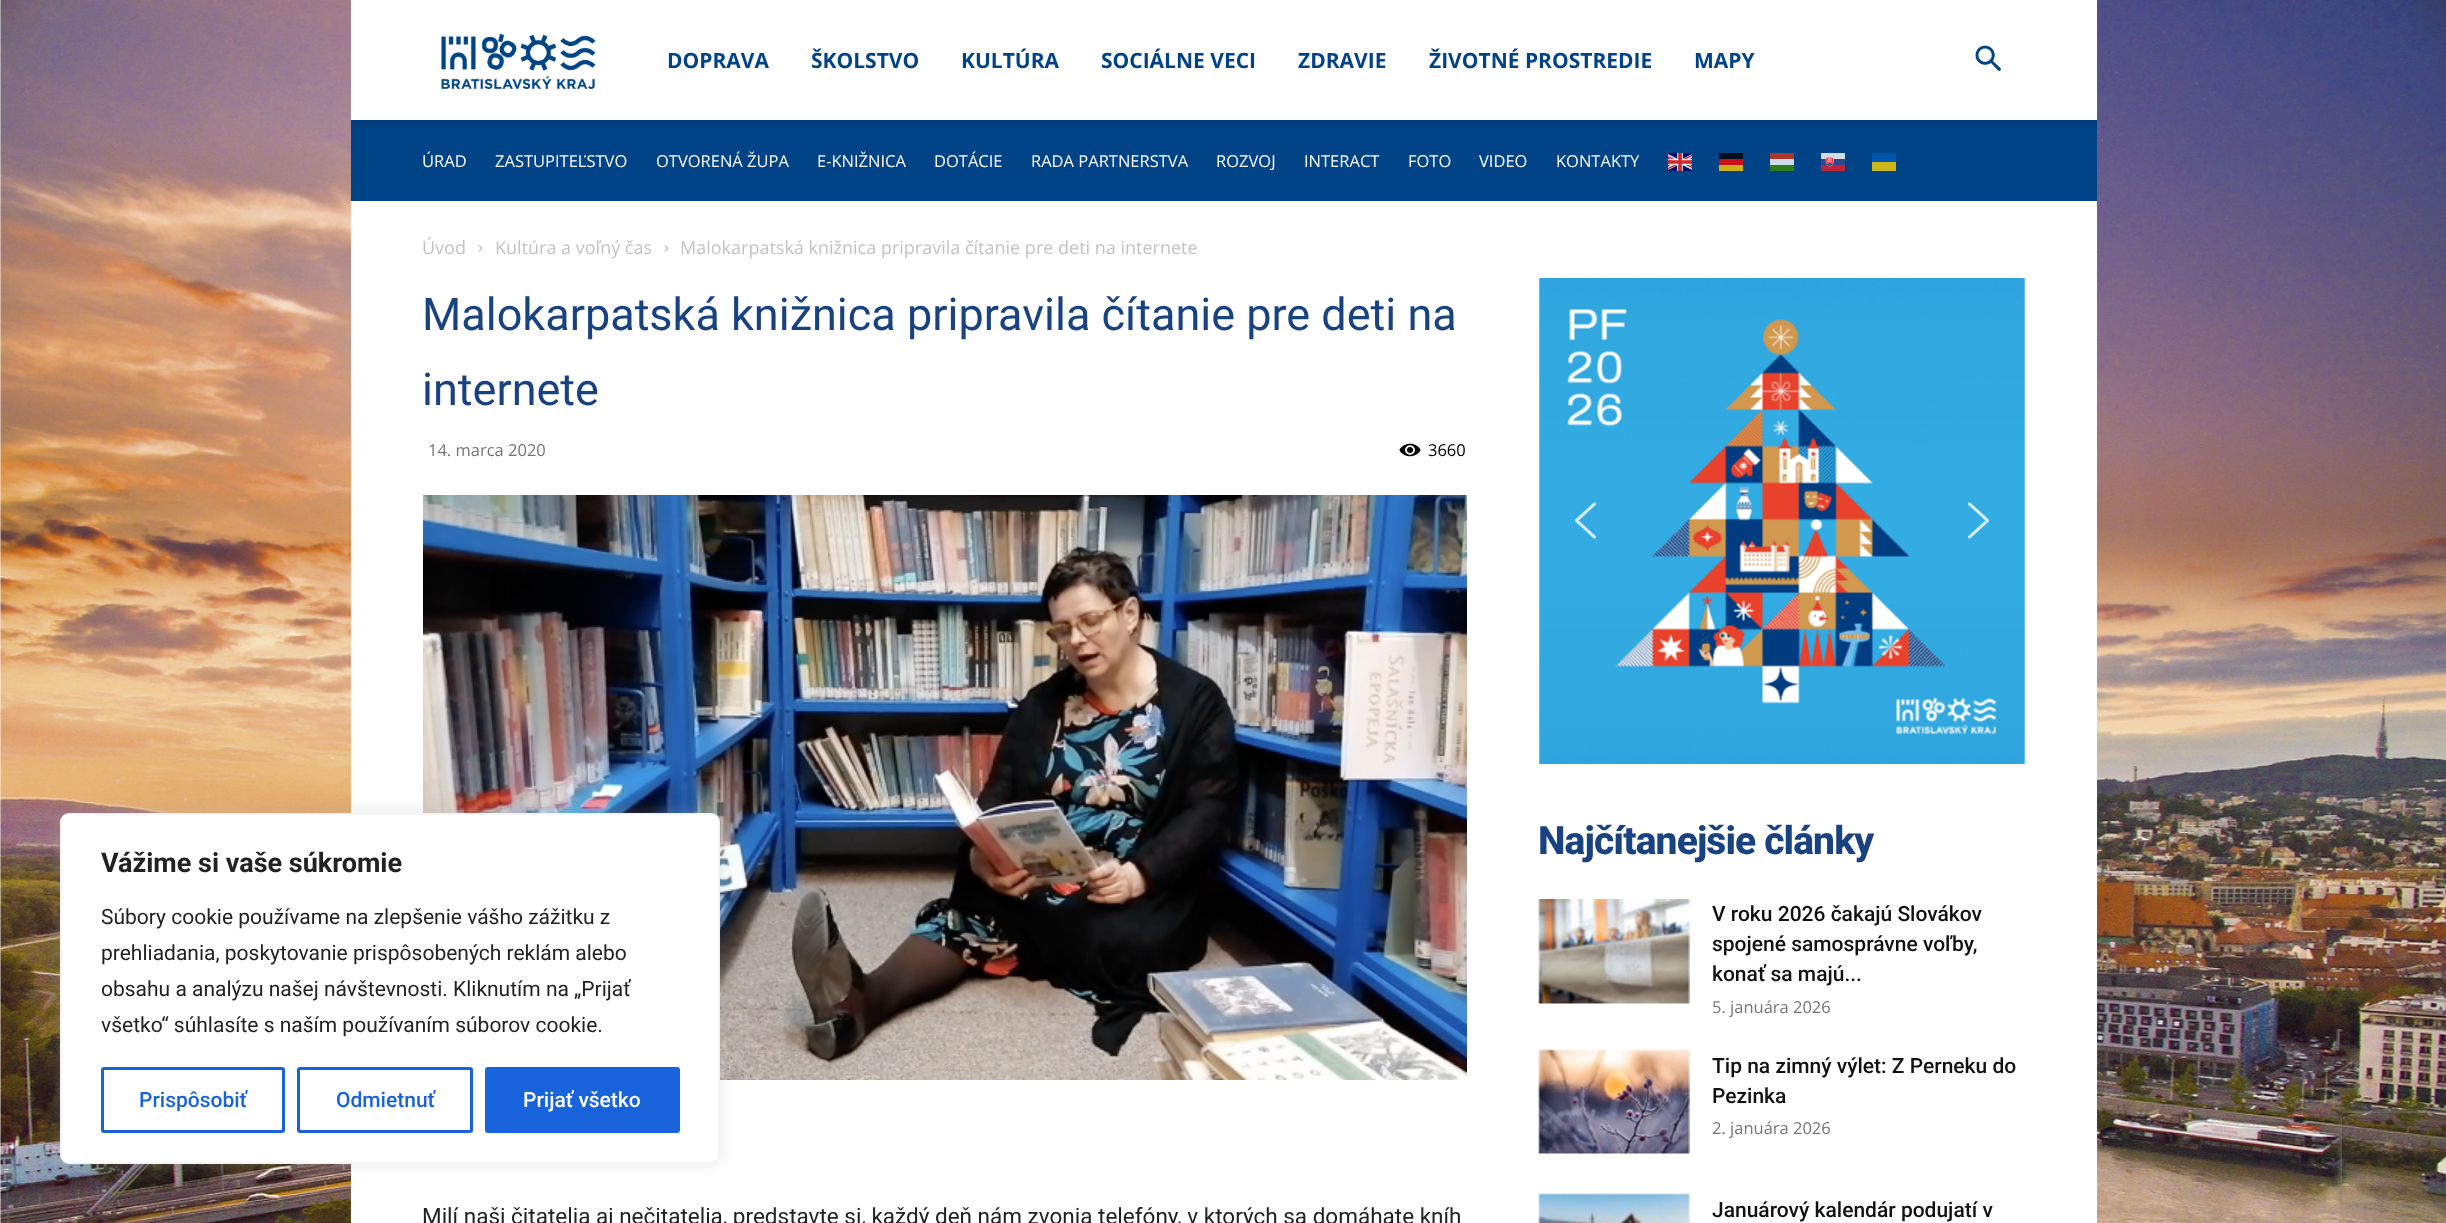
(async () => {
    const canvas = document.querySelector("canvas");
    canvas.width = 2446;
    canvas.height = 1223;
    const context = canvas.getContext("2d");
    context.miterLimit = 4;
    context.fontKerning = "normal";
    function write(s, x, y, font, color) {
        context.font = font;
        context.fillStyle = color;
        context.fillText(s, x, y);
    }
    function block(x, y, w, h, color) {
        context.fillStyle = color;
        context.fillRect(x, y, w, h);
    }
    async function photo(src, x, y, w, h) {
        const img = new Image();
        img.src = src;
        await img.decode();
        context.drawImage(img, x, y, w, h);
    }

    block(0, 0, 2446, 1223, "rgb(255, 255, 255)");
    await photo("media/1.png", 0, 0, 2446, 1223);
    block(351, 201, 1746, 1022, "rgb(255, 255, 255)");
    await photo("media/9.png", 423, 495, 1044, 585);
    context.fillStyle = "rgba(172, 171, 171, 0.3)";
    context.filter = "blur(7.5px)";
    context.beginPath();
    context.roundRect(60, 812, 660, 351, 9);
    context.fill();
    context.filter = "none";
    context.fillStyle = "rgb(255, 255, 255)";
    context.beginPath();
    context.roundRect(61, 814, 658, 349, 8);
    context.fill();
    context.strokeStyle = "rgb(244, 244, 244)";
    context.lineWidth = 2;
    context.stroke();
    write("Vážime si vaše súkromie", 101, 872, "bold 27px Roboto", "rgb(34, 34, 34)");
    write("Súbory cookie používame na zlepšenie vášho zážitku z", 101, 924, "21px Roboto", "rgb(34, 34, 34)");
    write("prehliadania, poskytovanie prispôsobených reklám alebo", 101, 960, "21px Roboto", "rgb(34, 34, 34)");
    write("obsahu a analýzu našej návštevnosti. Kliknutím na „Prijať", 101, 996, "21px Roboto", "rgb(34, 34, 34)");
    write("všetko“ súhlasíte s naším používaním súborov cookie.", 101, 1032, "21px Roboto", "rgb(34, 34, 34)");
    context.beginPath();
    context.roundRect(102.5, 1068.5, 181, 63, 1.5);
    context.strokeStyle = "rgb(24, 99, 220)";
    context.lineWidth = 3;
    context.stroke();
    write("Prispôsobiť", 139, 1107, "500 21px Roboto", "rgb(24, 99, 220)");
    context.beginPath();
    context.roundRect(298.5, 1068.5, 173, 63, 1.5);
    context.stroke();
    write("Odmietnuť", 336, 1107, "500 21px Roboto", "rgb(24, 99, 220)");
    context.beginPath();
    context.roundRect(486.5, 1068.5, 192, 63, 1.5);
    context.fill();
    context.stroke();
    write("Prijať všetko", 523, 1107, "500 21px Roboto", "rgb(255, 255, 255)");
    block(351, 0, 1746, 120, "rgb(255, 255, 255)");
    await photo("media/2.png", 441, 33, 155, 56);
    write("DOPRAVA", 667, 68, "bold 21px Open Sans", "rgb(0, 67, 134)");
    write("ŠKOLSTVO", 811, 68, "bold 21px Open Sans", "rgb(0, 67, 134)");
    write("KULTÚRA", 961, 68, "bold 21px Open Sans", "rgb(0, 67, 134)");
    write("SOCIÁLNE VECI", 1101, 68, "bold 21px Open Sans", "rgb(0, 67, 134)");
    write("ZDRAVIE", 1298, 68, "bold 21px Open Sans", "rgb(0, 67, 134)");
    write("ŽIVOTNÉ PROSTREDIE", 1429, 68, "bold 21px Open Sans", "rgb(0, 67, 134)");
    write("MAPY", 1694, 68, "bold 21px Open Sans", "rgb(0, 67, 134)");
    await photo("media/3.png", 1975, 45, 26, 26);
    block(351, 120, 1746, 81, "rgb(0, 67, 134)");
    await photo("media/4.png", 351, 120, 1746, 9);
    write("ÚRAD", 422, 167, "16.5px Open Sans", "rgb(255, 255, 255)");
    write("ZASTUPITEĽSTVO", 495, 167, "16.5px Open Sans", "rgb(255, 255, 255)");
    write("OTVORENÁ ŽUPA", 656, 167, "16.5px Open Sans", "rgb(255, 255, 255)");
    write("E-KNIŽNICA", 817, 167, "16.5px Open Sans", "rgb(255, 255, 255)");
    write("DOTÁCIE", 934, 167, "16.5px Open Sans", "rgb(255, 255, 255)");
    write("RADA PARTNERSTVA", 1031, 167, "16.5px Open Sans", "rgb(255, 255, 255)");
    write("ROZVOJ", 1216, 167, "16.5px Open Sans", "rgb(255, 255, 255)");
    write("INTERACT", 1304, 167, "16.5px Open Sans", "rgb(255, 255, 255)");
    write("FOTO", 1408, 167, "16.5px Open Sans", "rgb(255, 255, 255)");
    write("VIDEO", 1479, 167, "16.5px Open Sans", "rgb(255, 255, 255)");
    write("KONTAKTY", 1556, 167, "16.5px Open Sans", "rgb(255, 255, 255)");
    await photo("media/5.png", 1668, 153, 24, 18);
    block(1719, 153, 24, 6, "rgb(0, 13, 27)");
    block(1770, 153, 24, 6, "rgb(170, 56, 44)");
    await photo("media/6.png", 1821, 153, 24, 18);
    block(1872, 153, 24, 9, "rgb(0, 86, 176)");
    block(1719, 159, 24, 6, "rgb(204, 13, 27)");
    block(1770, 159, 24, 6, "rgb(204, 217, 231)");
    block(1872, 162, 24, 9, "rgb(204, 184, 27)");
    block(1719, 165, 24, 6, "rgb(204, 177, 27)");
    block(1770, 165, 24, 6, "rgb(45, 126, 27)");
    write("Úvod", 422, 254, "18px Open Sans", "rgb(195, 195, 195)");
    await photo("media/7.png", 478, 245, 5, 7);
    write("Kultúra a voľný čas", 495, 254, "18px Open Sans", "rgb(195, 195, 195)");
    await photo("media/7.png", 664, 245, 5, 7);
    write("Malokarpatská knižnica pripravila čítanie pre deti na internete", 680, 254, "18px Open Sans", "rgb(195, 195, 195)");
    write("Malokarpatská knižnica pripravila čítanie pre deti na", 422, 330, "45px Roboto", "rgb(25, 66, 129)");
    write("internete", 422, 405, "45px Roboto", "rgb(25, 66, 129)");
    write("14. marca 2020", 428, 456, "16.5px Open Sans", "rgb(118, 118, 118)");
    await photo("media/8.png", 1399, 443, 22, 14);
    write("3660", 1428, 456, "16.5px Open Sans", "rgb(0, 0, 0)");
    write("Milí naši čitatelia aj nečitatelia, predstavte si, každý deň nám zvonia telefóny, v ktorých sa domáhate kníh", 422, 1224, "22.5px Roboto", "rgb(34, 34, 34)");
    await photo("media/10.png", 1539, 278, 486, 486);
    await photo("media/11.png", 1575, 502, 21, 37);
    await photo("media/12.png", 1968, 502, 21, 37);
    context.letterSpacing = "-0.9px";
    write("Najčítanejšie články", 1538, 854, "800 39px Roboto", "rgb(25, 66, 129)");
    await photo("media/13.png", 1538, 899, 152, 105);
    context.letterSpacing = "0px";
    write("V roku 2026 čakajú Slovákov", 1712, 921, "500 21px Roboto", "rgb(17, 17, 17)");
    write("spojené samosprávne voľby,", 1712, 951, "500 21px Roboto", "rgb(17, 17, 17)");
    write("konať sa majú...", 1712, 981, "500 21px Roboto", "rgb(17, 17, 17)");
    write("5. januára 2026", 1712, 1013, "16.5px Open Sans", "rgb(118, 118, 118)");
    await photo("media/14.png", 1538, 1049, 152, 105);
    write("Tip na zimný výlet: Z Perneku do", 1712, 1073, "500 21px Roboto", "rgb(17, 17, 17)");
    write("Pezinka", 1712, 1103, "500 21px Roboto", "rgb(17, 17, 17)");
    write("2. januára 2026", 1712, 1134, "16.5px Open Sans", "rgb(118, 118, 118)");
    await photo("media/15.png", 1538, 1193, 152, 30);
    write("Januárový kalendár podujatí v", 1712, 1217, "500 21px Roboto", "rgb(17, 17, 17)");
    context.save();
    context.beginPath();
    context.moveTo(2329, 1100);
    context.lineTo(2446, 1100);
    context.lineTo(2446, 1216);
    context.lineTo(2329, 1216);
    context.closePath();
    context.moveTo(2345, 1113);
    context.lineTo(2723, 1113);
    context.bezierCurveTo(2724.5, 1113, 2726, 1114.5, 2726, 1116);
    context.lineTo(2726, 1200);
    context.bezierCurveTo(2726, 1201.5, 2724.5, 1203, 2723, 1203);
    context.lineTo(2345, 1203);
    context.bezierCurveTo(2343.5, 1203, 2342, 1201.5, 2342, 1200);
    context.lineTo(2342, 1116);
    context.bezierCurveTo(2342, 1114.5, 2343.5, 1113, 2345, 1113);
    context.closePath();
    context.clip("evenodd");
    context.fillStyle = "rgb(128, 128, 128)";
    context.filter = "blur(4px)";
    context.beginPath();
    context.roundRect(2342, 1113, 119, 90, 3);
    context.fill();
    context.filter = "none";
    context.restore();
})();
